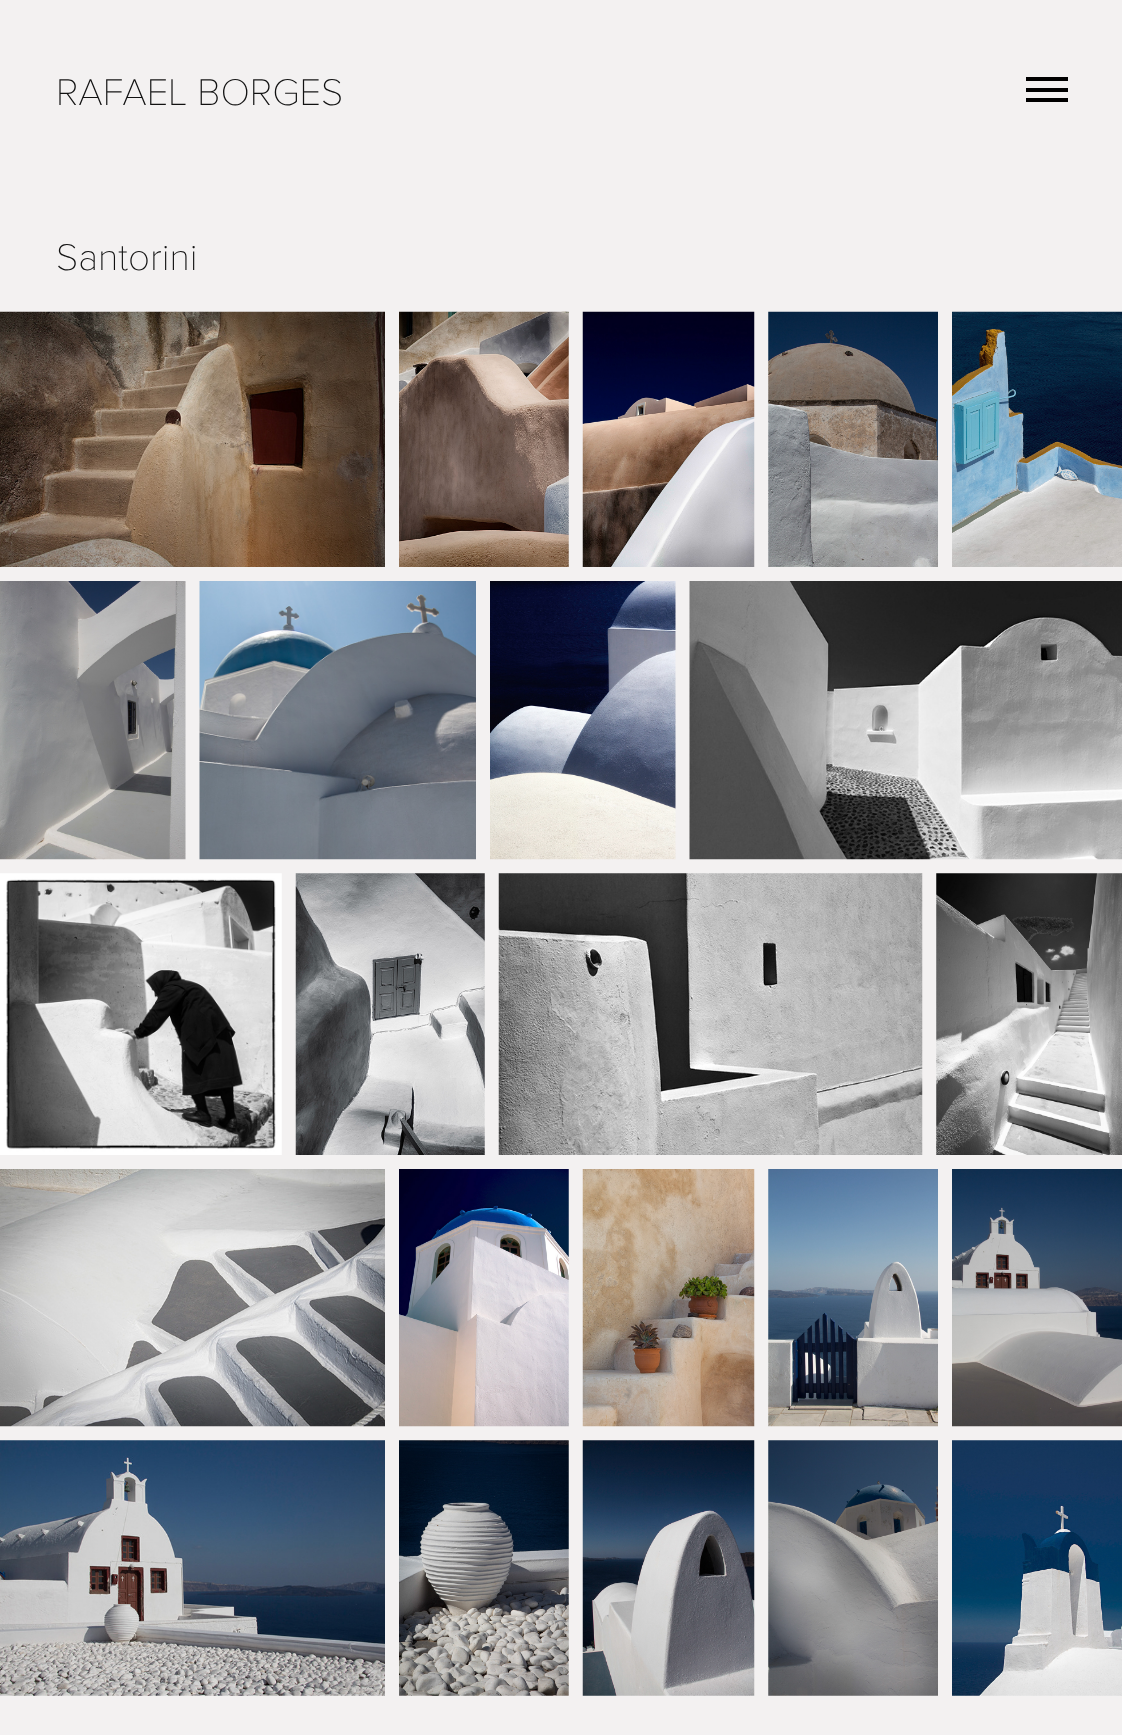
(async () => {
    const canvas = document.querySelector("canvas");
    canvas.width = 1122;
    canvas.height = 1735;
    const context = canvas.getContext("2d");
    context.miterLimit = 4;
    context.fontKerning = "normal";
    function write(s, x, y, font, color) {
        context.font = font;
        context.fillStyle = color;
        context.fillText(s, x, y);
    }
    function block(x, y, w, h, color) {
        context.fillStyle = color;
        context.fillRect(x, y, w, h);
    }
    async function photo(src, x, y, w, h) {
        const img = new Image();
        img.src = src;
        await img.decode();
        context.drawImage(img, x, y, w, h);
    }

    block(0, 0, 1122, 1735, "rgb(243, 241, 241)");
    write("RAFAEL BORGES", 56, 105, "100 38.5px Proxima Nova", "rgb(17, 17, 17)");
    block(1026, 77, 42, 4, "rgb(0, 0, 0)");
    block(1026, 88, 42, 4, "rgb(0, 0, 0)");
    block(1026, 98, 42, 4, "rgb(0, 0, 0)");
    write("Santorini", 56, 270, "100 38.5px Proxima Nova", "rgb(17, 17, 17)");
    await photo("media/1.png", 0, 311, 385, 256);
    await photo("media/2.png", 399, 311, 170, 256);
    await photo("media/3.png", 582, 311, 173, 256);
    await photo("media/4.png", 768, 311, 170, 256);
    await photo("media/5.png", 952, 311, 170, 256);
    await photo("media/6.png", 0, 581, 186, 279);
    await photo("media/7.png", 199, 581, 277, 279);
    await photo("media/8.png", 490, 581, 186, 279);
    await photo("media/9.png", 689, 581, 433, 279);
    await photo("media/10.png", 0, 873, 282, 282);
    await photo("media/11.png", 295, 873, 190, 282);
    await photo("media/12.png", 498, 873, 425, 282);
    await photo("media/13.png", 936, 873, 186, 282);
    await photo("media/14.png", 0, 1169, 385, 258);
    await photo("media/15.png", 399, 1169, 170, 258);
    await photo("media/16.png", 582, 1169, 173, 258);
    await photo("media/17.png", 768, 1169, 170, 258);
    await photo("media/18.png", 952, 1169, 170, 258);
    await photo("media/19.png", 0, 1440, 385, 256);
    await photo("media/20.png", 399, 1440, 170, 256);
    await photo("media/21.png", 582, 1440, 173, 256);
    await photo("media/22.png", 768, 1440, 170, 256);
    await photo("media/23.png", 952, 1440, 170, 256);
})();
